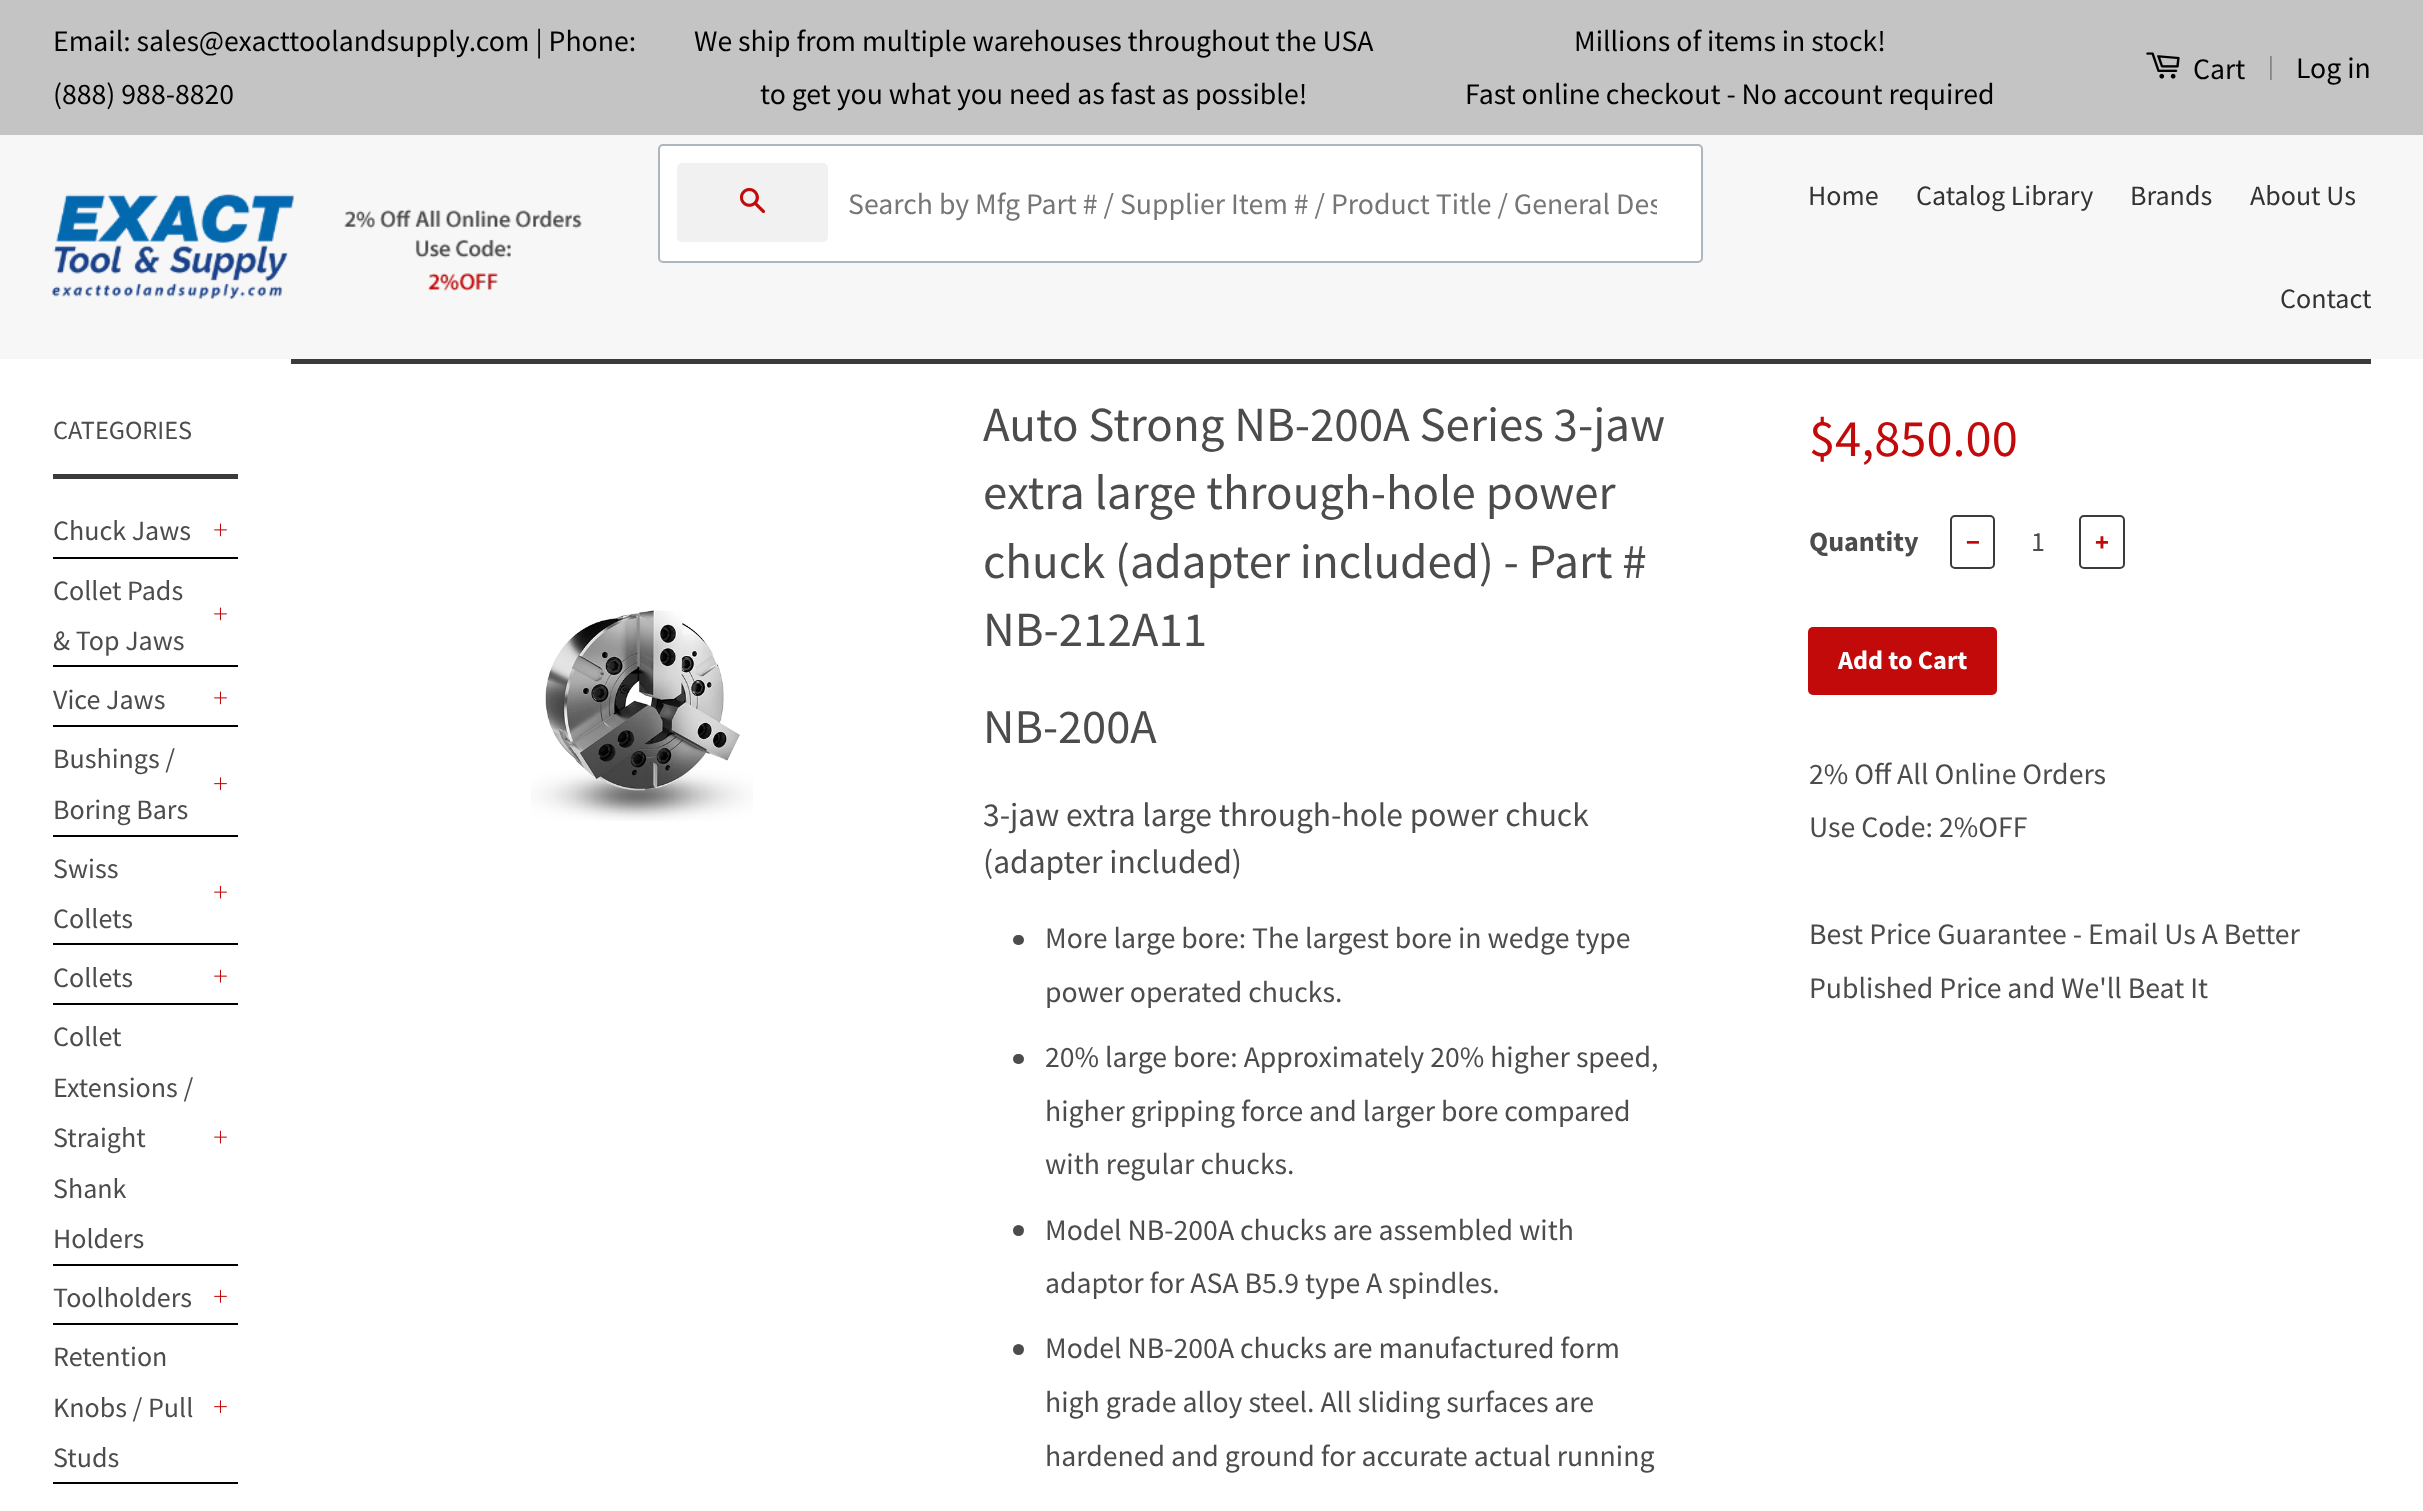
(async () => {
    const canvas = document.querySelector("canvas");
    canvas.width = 2423;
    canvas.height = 1511;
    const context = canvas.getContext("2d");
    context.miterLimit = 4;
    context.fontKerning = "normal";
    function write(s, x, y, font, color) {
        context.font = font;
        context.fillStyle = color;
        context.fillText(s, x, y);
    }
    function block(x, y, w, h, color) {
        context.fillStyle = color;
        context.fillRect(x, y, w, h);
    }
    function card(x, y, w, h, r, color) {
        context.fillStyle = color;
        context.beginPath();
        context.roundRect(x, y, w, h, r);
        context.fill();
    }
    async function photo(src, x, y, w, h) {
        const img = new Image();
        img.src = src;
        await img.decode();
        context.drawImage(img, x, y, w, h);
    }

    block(0, 0, 2423, 1511, "rgb(255, 255, 255)");
    block(0, 0, 2423, 135, "rgb(196, 196, 196)");
    write("Email: sales@exacttoolandsupply.com | Phone:", 53, 51, "29.75px Source Sans Pro", "rgb(0, 0, 0)");
    write("(888) 988-8820", 53, 104, "29.75px Source Sans Pro", "rgb(0, 0, 0)");
    write("We ship from multiple warehouses throughout the USA", 694, 51, "29.75px Source Sans Pro", "rgb(0, 0, 0)");
    write("to get you what you need as fast as possible!", 760, 104, "29.75px Source Sans Pro", "rgb(0, 0, 0)");
    write("Millions of items in stock!", 1574, 51, "29.75px Source Sans Pro", "rgb(0, 0, 0)");
    write("Fast online checkout - No account required", 1465, 104, "29.75px Source Sans Pro", "rgb(0, 0, 0)");
    await photo("media/1.png", 2146, 52, 34, 27);
    write("Cart", 2193, 79, "29.75px Source Sans Pro", "rgb(0, 0, 0)");
    write("|", 2268, 74, "24px Source Sans Pro", "rgb(118, 118, 118)");
    write("Log in", 2296, 78, "29.75px Source Sans Pro", "rgb(0, 0, 0)");
    block(0, 135, 2423, 224, "rgb(247, 247, 247)");
    await photo("media/2.png", 52, 194, 530, 105);
    context.fillStyle = "rgb(255, 255, 255)";
    context.beginPath();
    context.roundRect(659, 145, 1043, 117, 4);
    context.fill();
    context.strokeStyle = "rgb(173, 181, 189)";
    context.lineWidth = 2;
    context.stroke();
    card(677, 163, 151, 79, 5, "rgb(241, 241, 241)");
    await photo("media/3.png", 739, 188, 27, 26);
    context.save();
    context.beginPath();
    context.rect(847, 184, 810, 38);
    context.clip();
    write("Search by Mfg Part # / Supplier Item # / Product Title / General Des", 848, 214, "29.75px Source Sans Pro", "rgb(118, 118, 118)");
    context.restore();
    write("Home", 1808, 205, "28px Source Sans Pro", "rgb(51, 51, 51)");
    write("Catalog Library", 1916, 205, "28px Source Sans Pro", "rgb(51, 51, 51)");
    write("Brands", 2130, 205, "28px Source Sans Pro", "rgb(51, 51, 51)");
    write("About Us", 2250, 205, "28px Source Sans Pro", "rgb(51, 51, 51)");
    write("Contact", 2280, 308, "28px Source Sans Pro", "rgb(51, 51, 51)");
    block(53, 474, 185, 5, "rgb(59, 59, 59)");
    write("CATEGORIES", 53, 439, "26.25px Source Sans Pro", "rgb(76, 76, 76)");
    block(53, 557, 185, 2, "rgb(0, 0, 0)");
    write("Chuck Jaws", 53, 540, "28px Source Sans Pro", "rgb(76, 76, 76)");
    await photo("media/4.png", 214, 523, 13, 14);
    block(53, 665, 185, 2, "rgb(0, 0, 0)");
    write("Collet Pads", 53, 600, "28px Source Sans Pro", "rgb(76, 76, 76)");
    write("& Top Jaws", 53, 650, "28px Source Sans Pro", "rgb(76, 76, 76)");
    await photo("media/4.png", 214, 607, 13, 14);
    block(53, 725, 185, 2, "rgb(0, 0, 0)");
    write("Vice Jaws", 53, 709, "28px Source Sans Pro", "rgb(76, 76, 76)");
    await photo("media/4.png", 214, 691, 13, 14);
    block(53, 835, 185, 2, "rgb(0, 0, 0)");
    write("Bushings /", 53, 768, "28px Source Sans Pro", "rgb(76, 76, 76)");
    write("Boring Bars", 53, 819, "28px Source Sans Pro", "rgb(76, 76, 76)");
    await photo("media/5.png", 214, 777, 13, 13);
    block(53, 943, 185, 2, "rgb(0, 0, 0)");
    write("Swiss", 53, 878, "28px Source Sans Pro", "rgb(76, 76, 76)");
    write("Collets", 53, 928, "28px Source Sans Pro", "rgb(76, 76, 76)");
    await photo("media/6.png", 214, 885, 13, 14);
    block(53, 1003, 185, 2, "rgb(0, 0, 0)");
    write("Collets", 53, 987, "28px Source Sans Pro", "rgb(76, 76, 76)");
    await photo("media/6.png", 214, 969, 13, 14);
    block(53, 1264, 185, 2, "rgb(0, 0, 0)");
    write("Collet", 53, 1046, "28px Source Sans Pro", "rgb(76, 76, 76)");
    write("Extensions /", 53, 1097, "28px Source Sans Pro", "rgb(76, 76, 76)");
    write("Straight", 53, 1147, "28px Source Sans Pro", "rgb(76, 76, 76)");
    write("Shank", 53, 1198, "28px Source Sans Pro", "rgb(76, 76, 76)");
    write("Holders", 53, 1248, "28px Source Sans Pro", "rgb(76, 76, 76)");
    await photo("media/6.png", 214, 1130, 13, 14);
    block(53, 1323, 185, 2, "rgb(0, 0, 0)");
    write("Toolholders", 53, 1307, "28px Source Sans Pro", "rgb(76, 76, 76)");
    await photo("media/7.png", 214, 1290, 13, 13);
    block(53, 1482, 185, 2, "rgb(0, 0, 0)");
    write("Retention", 53, 1366, "28px Source Sans Pro", "rgb(76, 76, 76)");
    write("Knobs / Pull", 53, 1417, "28px Source Sans Pro", "rgb(76, 76, 76)");
    write("Studs", 53, 1467, "28px Source Sans Pro", "rgb(76, 76, 76)");
    await photo("media/5.png", 214, 1400, 13, 13);
    block(291, 359, 2080, 5, "rgb(59, 59, 59)");
    await photo("media/8.png", 531, 610, 222, 211);
    write("Auto Strong NB-200A Series 3-jaw", 983, 441, "49px Source Sans Pro", "rgb(76, 76, 76)");
    write("extra large through-hole power", 983, 509, "49px Source Sans Pro", "rgb(76, 76, 76)");
    write("chuck (adapter included) - Part #", 983, 578, "49px Source Sans Pro", "rgb(76, 76, 76)");
    write("NB-212A11", 983, 646, "49px Source Sans Pro", "rgb(76, 76, 76)");
    write("NB-200A", 983, 743, "48.5px Source Sans Pro", "rgb(76, 76, 76)");
    write("3-jaw extra large through-hole power chuck", 983, 826, "33.5px Source Sans Pro", "rgb(76, 76, 76)");
    write("(adapter included)", 983, 873, "33.5px Source Sans Pro", "rgb(76, 76, 76)");
    card(1013, 935, 11, 10, 5, "rgb(76, 76, 76)");
    write("More large bore: The largest bore in wedge type", 1045, 948, "29.75px Source Sans Pro", "rgb(76, 76, 76)");
    write("power operated chucks.", 1045, 1002, "29.75px Source Sans Pro", "rgb(76, 76, 76)");
    card(1013, 1054, 11, 10, 5, "rgb(76, 76, 76)");
    write("20% large bore: Approximately 20% higher speed,", 1045, 1067, "29.75px Source Sans Pro", "rgb(76, 76, 76)");
    write("higher gripping force and larger bore compared", 1045, 1121, "29.75px Source Sans Pro", "rgb(76, 76, 76)");
    write("with regular chucks.", 1045, 1174, "29.75px Source Sans Pro", "rgb(76, 76, 76)");
    context.beginPath();
    context.arc(1018.5, 1230.5, 5.5, 0, Math.PI * 2);
    context.fill();
    write("Model NB-200A chucks are assembled with", 1045, 1240, "29.75px Source Sans Pro", "rgb(76, 76, 76)");
    write("adaptor for ASA B5.9 type A spindles.", 1045, 1293, "29.75px Source Sans Pro", "rgb(76, 76, 76)");
    context.beginPath();
    context.arc(1018.5, 1349.5, 5.5, 0, Math.PI * 2);
    context.fill();
    write("Model NB-200A chucks are manufactured form", 1045, 1358, "29.75px Source Sans Pro", "rgb(76, 76, 76)");
    write("high grade alloy steel. All sliding surfaces are", 1045, 1412, "29.75px Source Sans Pro", "rgb(76, 76, 76)");
    write("hardened and ground for accurate actual running", 1045, 1466, "29.75px Source Sans Pro", "rgb(76, 76, 76)");
    write("$4,850.00", 1809, 456, "52.5px Source Sans Pro", "rgb(194, 10, 10)");
    write("Quantity", 1809, 551, "bold 28px Source Sans Pro", "rgb(76, 76, 76)");
    context.beginPath();
    context.roundRect(1951, 516, 43, 52, 4);
    context.strokeStyle = "rgb(59, 59, 59)";
    context.stroke();
    write("−", 1966, 551, "bold 26.25px Source Sans Pro", "rgb(194, 10, 10)");
    write("1", 2031, 551, "28px Source Sans Pro", "rgb(76, 76, 76)");
    context.beginPath();
    context.roundRect(2080, 516, 44, 52, 4);
    context.stroke();
    write("+", 2095, 551, "bold 26.25px Source Sans Pro", "rgb(194, 10, 10)");
    card(1808, 627, 189, 68, 5, "rgb(194, 10, 10)");
    write("Add to Cart", 1838, 669, "bold 26.25px Source Sans Pro", "rgb(255, 255, 255)");
    write("2% Off All Online Orders", 1809, 784, "29.75px Source Sans Pro", "rgb(76, 76, 76)");
    write("Use Code: 2%OFF", 1809, 837, "29.75px Source Sans Pro", "rgb(76, 76, 76)");
    write("Best Price Guarantee - Email Us A Better", 1809, 944, "29.75px Source Sans Pro", "rgb(76, 76, 76)");
    write("Published Price and We'll Beat It", 1809, 998, "29.75px Source Sans Pro", "rgb(76, 76, 76)");
})();
